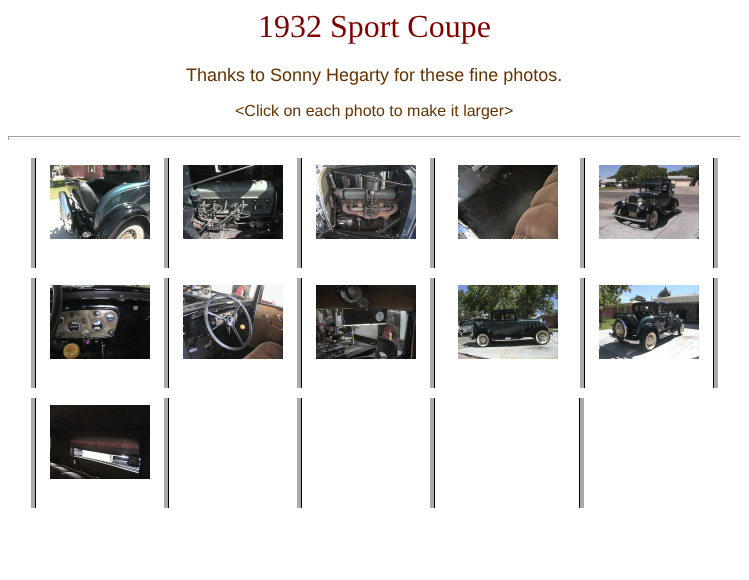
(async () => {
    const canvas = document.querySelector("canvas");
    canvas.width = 749;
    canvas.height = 580;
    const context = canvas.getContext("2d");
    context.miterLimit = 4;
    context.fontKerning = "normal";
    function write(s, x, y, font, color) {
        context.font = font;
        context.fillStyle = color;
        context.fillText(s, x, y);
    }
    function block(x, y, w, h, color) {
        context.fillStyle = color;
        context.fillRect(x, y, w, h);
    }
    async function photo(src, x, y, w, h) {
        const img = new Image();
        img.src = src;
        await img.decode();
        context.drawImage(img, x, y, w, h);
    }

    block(0, 0, 749, 580, "rgb(255, 255, 255)");
    write("1932 Sport Coupe", 258, 37, "32px Liberation Serif", "rgb(128, 0, 0)");
    write("Thanks to Sonny Hegarty for these fine photos.", 186, 81, "18px Liberation Sans", "rgb(102, 51, 0)");
    write("<Click on each photo to make it larger>", 235, 116, "16px Liberation Sans", "rgb(102, 51, 0)");
    block(8, 136, 733, 1, "rgb(159, 159, 159)");
    block(740, 136, 1, 4, "rgb(238, 238, 238)");
    block(8, 139, 733, 1, "rgb(238, 238, 238)");
    block(8, 136, 1, 4, "rgb(159, 159, 159)");
    block(31, 158, 4, 110, "rgb(170, 170, 170)");
    block(35, 158, 1, 110, "rgb(0, 0, 0)");
    await photo("media/1.png", 50, 165, 100, 74);
    block(164, 158, 4, 110, "rgb(170, 170, 170)");
    block(168, 158, 1, 110, "rgb(0, 0, 0)");
    await photo("media/2.png", 183, 165, 100, 74);
    block(297, 158, 4, 110, "rgb(170, 170, 170)");
    block(301, 158, 1, 110, "rgb(0, 0, 0)");
    await photo("media/3.png", 316, 165, 100, 74);
    block(430, 158, 4, 110, "rgb(170, 170, 170)");
    block(434, 158, 1, 110, "rgb(0, 0, 0)");
    await photo("media/4.png", 458, 165, 100, 74);
    block(580, 158, 4, 110, "rgb(170, 170, 170)");
    block(713, 158, 1, 110, "rgb(0, 0, 0)");
    block(584, 158, 1, 110, "rgb(0, 0, 0)");
    await photo("media/5.png", 599, 165, 100, 74);
    block(714, 158, 4, 110, "rgb(170, 170, 170)");
    block(31, 278, 4, 110, "rgb(170, 170, 170)");
    block(35, 278, 1, 110, "rgb(0, 0, 0)");
    await photo("media/6.png", 50, 285, 100, 74);
    block(164, 278, 4, 110, "rgb(170, 170, 170)");
    block(168, 278, 1, 110, "rgb(0, 0, 0)");
    await photo("media/7.png", 183, 285, 100, 74);
    block(297, 278, 4, 110, "rgb(170, 170, 170)");
    block(301, 278, 1, 110, "rgb(0, 0, 0)");
    await photo("media/8.png", 316, 285, 100, 74);
    block(430, 278, 4, 110, "rgb(170, 170, 170)");
    block(434, 278, 1, 110, "rgb(0, 0, 0)");
    await photo("media/9.png", 458, 285, 100, 74);
    block(580, 278, 4, 110, "rgb(170, 170, 170)");
    block(713, 278, 1, 110, "rgb(0, 0, 0)");
    block(584, 278, 1, 110, "rgb(0, 0, 0)");
    await photo("media/10.png", 599, 285, 100, 74);
    block(714, 278, 4, 110, "rgb(170, 170, 170)");
    block(31, 398, 4, 110, "rgb(170, 170, 170)");
    block(35, 398, 1, 110, "rgb(0, 0, 0)");
    await photo("media/11.png", 50, 405, 100, 74);
    block(164, 398, 4, 110, "rgb(170, 170, 170)");
    block(168, 398, 1, 110, "rgb(0, 0, 0)");
    block(297, 398, 4, 110, "rgb(170, 170, 170)");
    block(301, 398, 1, 110, "rgb(0, 0, 0)");
    block(430, 398, 4, 110, "rgb(170, 170, 170)");
    block(579, 398, 1, 110, "rgb(0, 0, 0)");
    block(434, 398, 1, 110, "rgb(0, 0, 0)");
    block(580, 398, 4, 110, "rgb(170, 170, 170)");
})();
